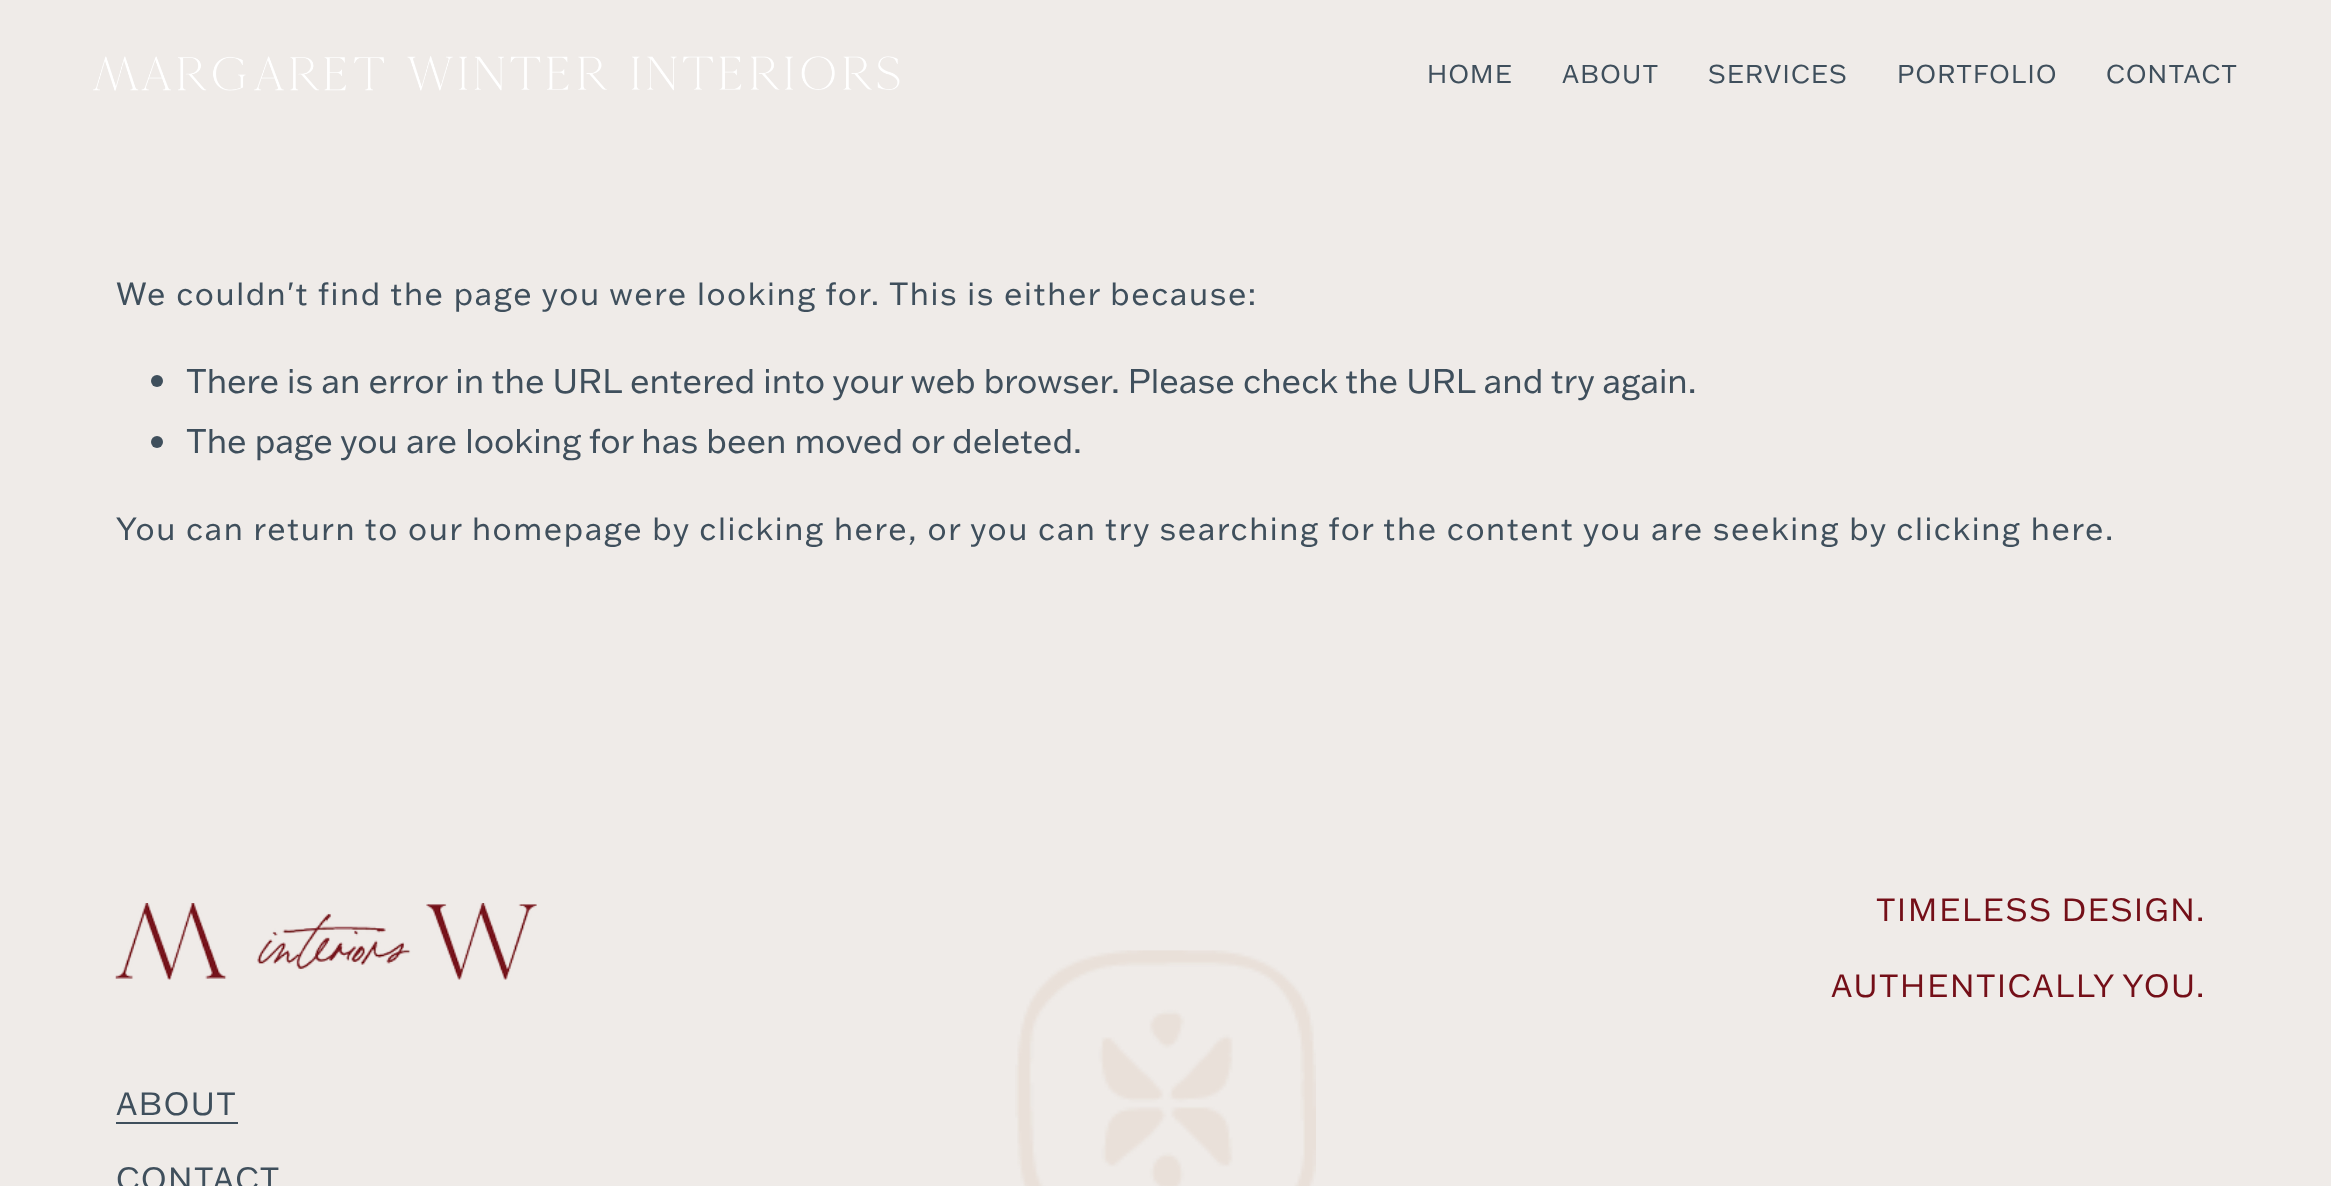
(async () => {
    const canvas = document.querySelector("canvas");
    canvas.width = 2331;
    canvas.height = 1186;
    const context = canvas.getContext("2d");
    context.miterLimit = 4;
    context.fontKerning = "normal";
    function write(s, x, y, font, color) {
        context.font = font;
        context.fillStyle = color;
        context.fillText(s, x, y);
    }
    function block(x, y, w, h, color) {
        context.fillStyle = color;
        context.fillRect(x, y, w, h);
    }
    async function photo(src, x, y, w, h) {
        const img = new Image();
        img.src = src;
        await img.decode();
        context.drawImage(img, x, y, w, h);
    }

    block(0, 0, 2331, 1186, "rgb(239, 235, 232)");
    await photo("media/1.png", 93, 56, 807, 35);
    context.letterSpacing = "1.25px";
    write("HOME", 1427, 83, "25.25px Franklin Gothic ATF", "rgb(63, 79, 92)");
    write("ABOUT", 1562, 83, "25.25px Franklin Gothic ATF", "rgb(63, 79, 92)");
    write("SERVICES", 1708, 83, "25.25px Franklin Gothic ATF", "rgb(63, 79, 92)");
    write("PORTFOLIO", 1897, 83, "25.25px Franklin Gothic ATF", "rgb(63, 79, 92)");
    write("CONTACT", 2106, 83, "25.25px Franklin Gothic ATF", "rgb(63, 79, 92)");
    context.letterSpacing = "1.57px";
    write("We couldn't find the page you were looking for. This is either because:", 116, 305, "31.5px Franklin Gothic ATF", "rgb(63, 79, 92)");
    context.beginPath();
    context.arc(157, 381, 6, 0, Math.PI * 2);
    context.fill();
    context.letterSpacing = "0px";
    write("There is an error in the URL entered into your web browser. Please check the URL and try again.", 186, 393, "33.6px Franklin Gothic ATF", "rgb(63, 79, 92)");
    context.beginPath();
    context.arc(157, 442, 6, 0, Math.PI * 2);
    context.fill();
    write("The page you are looking for has been moved or deleted.", 186, 453, "33.6px Franklin Gothic ATF", "rgb(63, 79, 92)");
    context.letterSpacing = "1.57px";
    write("You can return to our homepage by clicking here, or you can try searching for the content you are seeking by clicking here.", 116, 540, "31.5px Franklin Gothic ATF", "rgb(63, 79, 92)");
    await photo("media/2.png", 115, 903, 422, 77);
    write("TIMELESS DESIGN.", 1876, 921, "31.5px Franklin Gothic ATF", "rgb(116, 15, 24)");
    write("AUTHENTICALLY YOU.", 1831, 997, "31.5px Franklin Gothic ATF", "rgb(116, 15, 24)");
    write("ABOUT", 116, 1115, "31.5px Franklin Gothic ATF", "rgb(63, 79, 92)");
    block(116, 1122, 122, 2, "rgb(63, 79, 92)");
    write("CONTACT", 116, 1190, "31.5px Franklin Gothic ATF", "rgb(63, 79, 92)");
    await photo("media/3.png", 1015, 950, 301, 236);
})();
